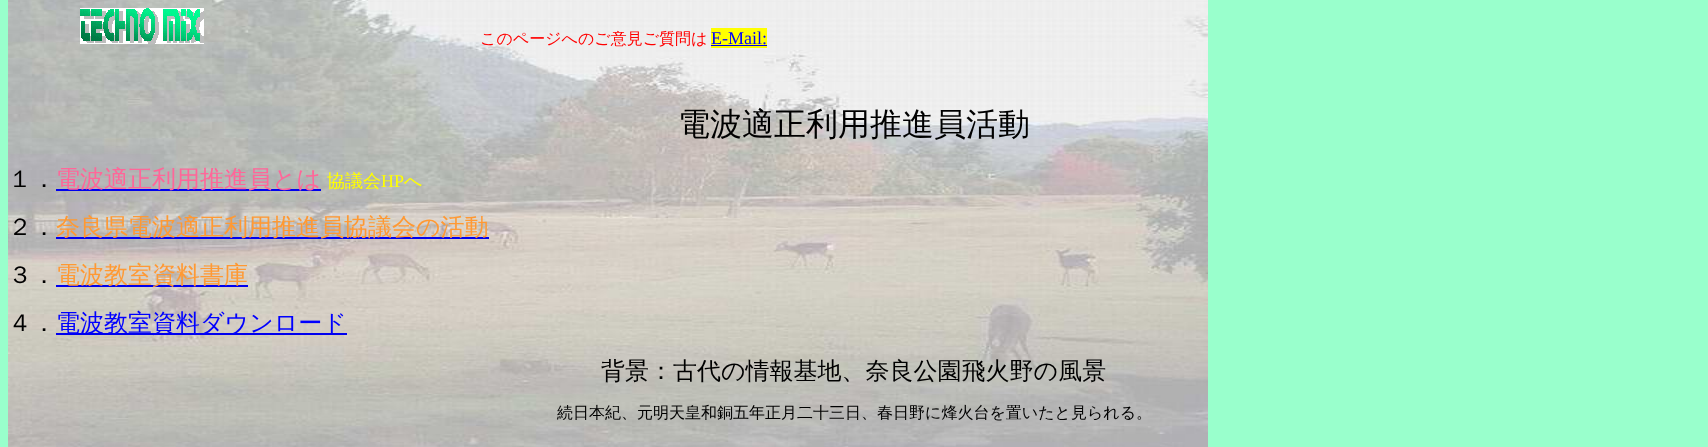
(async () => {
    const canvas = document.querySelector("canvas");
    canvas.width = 1708;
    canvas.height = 447;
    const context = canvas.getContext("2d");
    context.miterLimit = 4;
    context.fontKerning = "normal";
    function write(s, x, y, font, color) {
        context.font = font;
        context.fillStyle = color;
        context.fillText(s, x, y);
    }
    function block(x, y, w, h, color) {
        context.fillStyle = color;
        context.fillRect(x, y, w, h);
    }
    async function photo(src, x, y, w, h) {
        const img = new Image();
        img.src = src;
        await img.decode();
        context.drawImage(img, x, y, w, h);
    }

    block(0, 0, 1708, 447, "rgb(153, 255, 204)");
    await photo("media/1.png", 8, 0, 1200, 447);
    await photo("media/2.png", 80, 8, 124, 36);
    write("このページへのご意見ご質問は", 480, 44, "500 16px WenQuanYi Zen Hei", "rgb(255, 0, 0)");
    block(711, 28, 56, 20, "rgb(255, 255, 0)");
    write("E-Mail:", 711, 44, "18px Liberation Serif", "rgb(0, 0, 255)");
    block(711, 45, 56, 1, "rgb(0, 0, 238)");
    write("電波適正利用推進員活動", 678, 135, "500 32px WenQuanYi Zen Hei", "rgb(0, 0, 0)");
    write("１．", 8, 187, "500 24px WenQuanYi Zen Hei", "rgb(0, 0, 0)");
    block(56, 189, 265, 2, "rgb(0, 0, 238)");
    write("電波適正利用推進員とは", 56, 187, "500 24px WenQuanYi Zen Hei", "rgb(255, 102, 153)");
    write("協議会", 327, 187, "500 18px WenQuanYi Zen Hei", "rgb(255, 255, 0)");
    write("HP", 381, 187, "18px Liberation Serif", "rgb(255, 255, 0)");
    write("へ", 404, 187, "500 18px WenQuanYi Zen Hei", "rgb(255, 255, 0)");
    write("２．", 8, 235, "500 24px WenQuanYi Zen Hei", "rgb(0, 0, 0)");
    block(56, 237, 433, 2, "rgb(0, 0, 238)");
    write("奈良県電波適正利用推進員協議会の活動", 56, 235, "500 24px WenQuanYi Zen Hei", "rgb(255, 153, 51)");
    write("３．", 8, 283, "500 24px WenQuanYi Zen Hei", "rgb(0, 0, 0)");
    block(56, 285, 192, 2, "rgb(0, 0, 238)");
    write("電波教室資料書庫", 56, 283, "500 24px WenQuanYi Zen Hei", "rgb(255, 153, 51)");
    write("４．", 8, 331, "500 24px WenQuanYi Zen Hei", "rgb(0, 0, 0)");
    block(56, 333, 291, 2, "rgb(0, 0, 238)");
    write("電波教室資料ダウンロード", 56, 331, "500 24px WenQuanYi Zen Hei", "rgb(0, 0, 255)");
    write("背景：古代の情報基地、奈良公園飛火野の風景", 601, 379, "500 24px WenQuanYi Zen Hei", "rgb(0, 0, 0)");
    write("続日本紀、元明天皇和銅五年正月二十三日、春日野に烽火台を置いたと見られる。", 557, 418, "500 16px WenQuanYi Zen Hei", "rgb(0, 0, 0)");
})();
